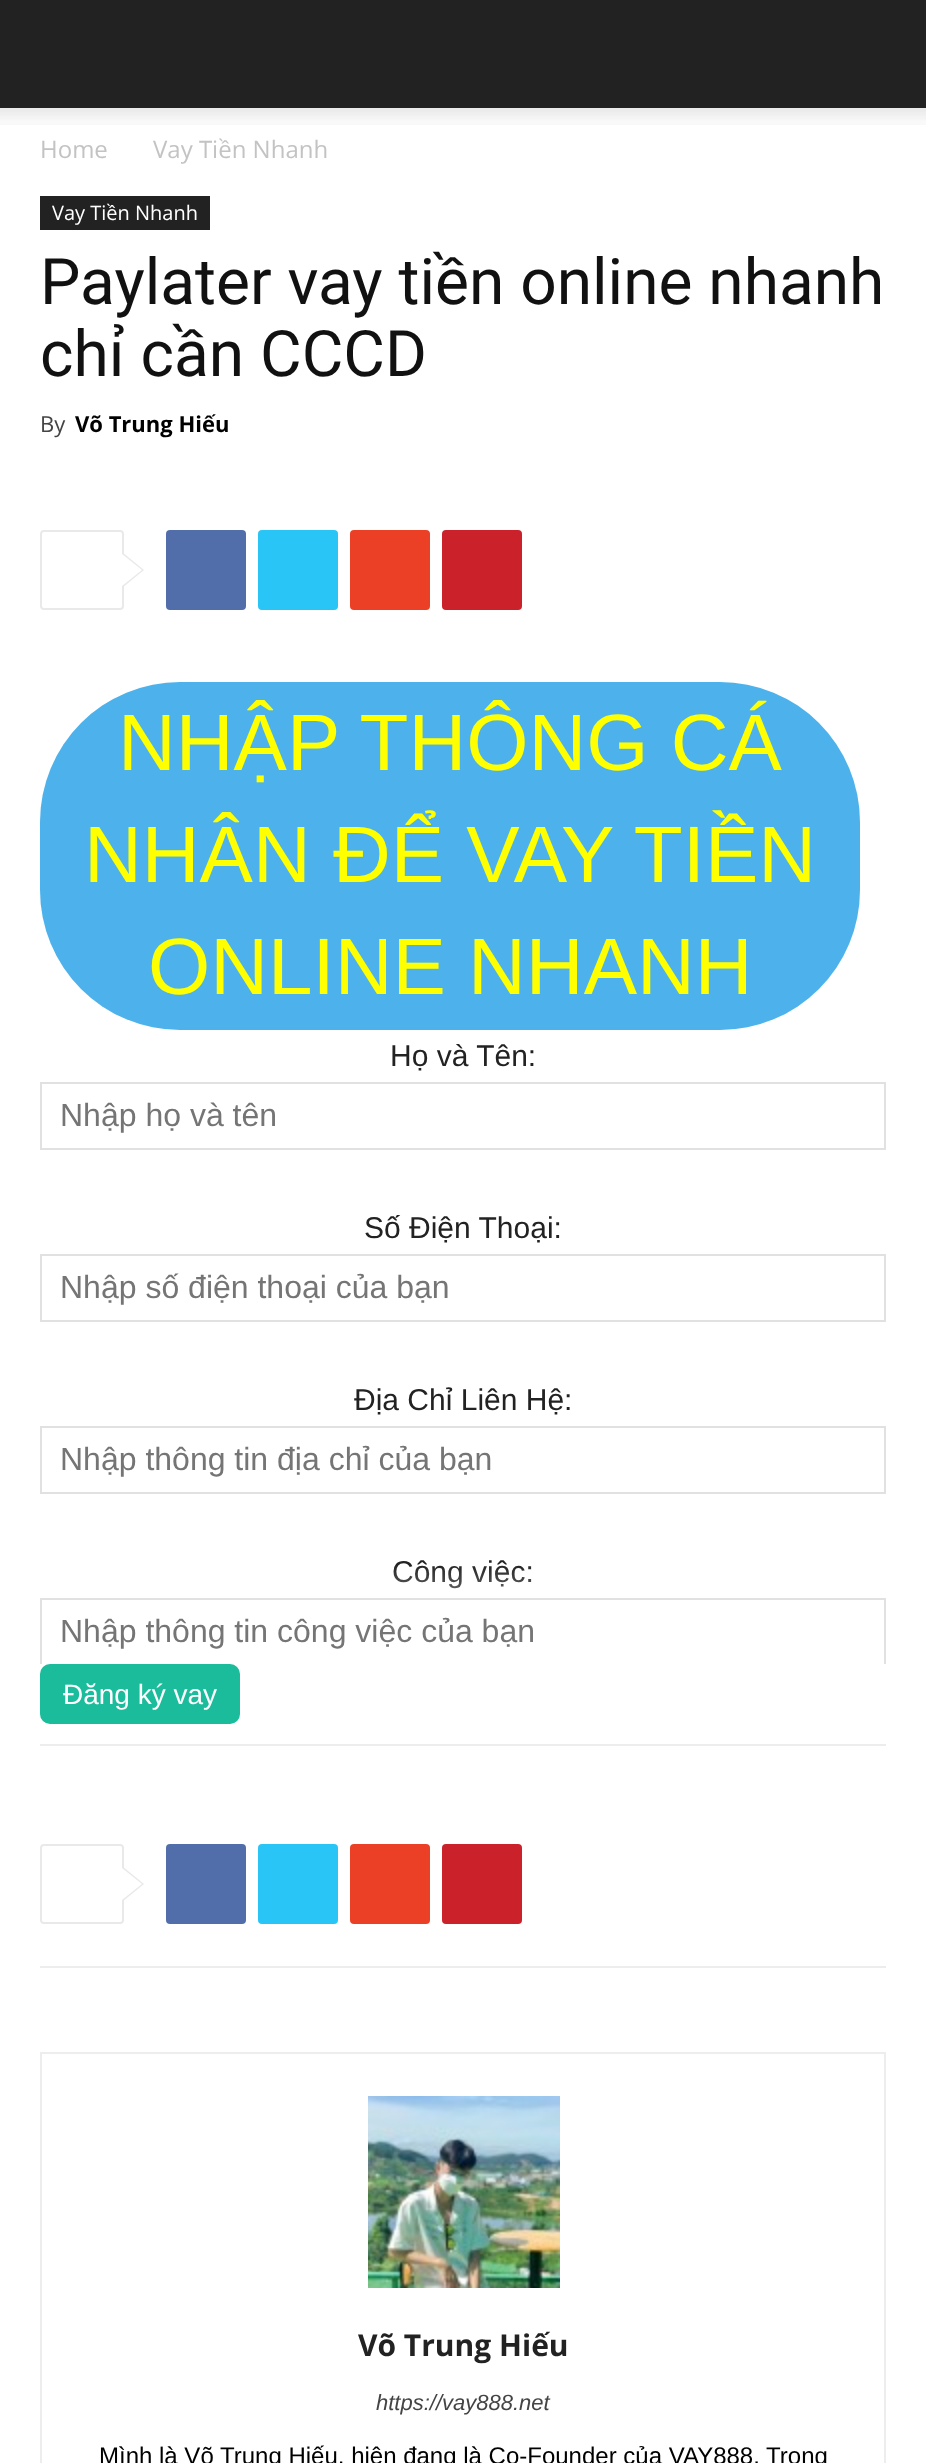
(async () => {
    const canvas = document.querySelector("canvas");
    canvas.width = 926;
    canvas.height = 2463;
    const context = canvas.getContext("2d");
    context.miterLimit = 4;
    context.fontKerning = "normal";
    function write(s, x, y, font, color) {
        context.font = font;
        context.fillStyle = color;
        context.fillText(s, x, y);
    }
    function block(x, y, w, h, color) {
        context.fillStyle = color;
        context.fillRect(x, y, w, h);
    }
    function card(x, y, w, h, r, color) {
        context.fillStyle = color;
        context.beginPath();
        context.roundRect(x, y, w, h, r);
        context.fill();
    }
    async function photo(src, x, y, w, h) {
        const img = new Image();
        img.src = src;
        await img.decode();
        context.drawImage(img, x, y, w, h);
    }
    let gradient;

    block(0, 0, 926, 2463, "rgb(255, 255, 255)");
    block(0, 0, 926, 108, "rgb(34, 34, 34)");
    await photo("media/1.png", 0, 108, 926, 17);
    write("Home", 40, 158, "24px Open Sans", "rgb(195, 195, 195)");
    write("Vay Tiền Nhanh", 153, 158, "24px Open Sans", "rgb(195, 195, 195)");
    block(40, 196, 170, 34, "rgb(34, 34, 34)");
    write("Vay Tiền Nhanh", 52, 220, "20px Open Sans", "rgb(255, 255, 255)");
    write("Paylater vay tiền online nhanh", 40, 304, "64px Roboto", "rgb(17, 17, 17)");
    write("chỉ cần CCCD", 40, 376, "64px Roboto", "rgb(17, 17, 17)");
    write("By", 40, 432, "22px Open Sans", "rgb(68, 68, 68)");
    write("Võ Trung Hiếu", 75, 432, "bold 22px Open Sans", "rgb(0, 0, 0)");
    context.beginPath();
    context.roundRect(41, 531, 82, 78, 3);
    context.strokeStyle = "rgb(233, 233, 233)";
    context.lineWidth = 2;
    context.stroke();
    context.fillStyle = "rgb(233, 233, 233)";
    context.beginPath();
    context.moveTo(122, 588);
    context.lineTo(122, 552);
    context.lineTo(144, 570);
    context.closePath();
    context.fill();
    context.fillStyle = "rgb(255, 255, 255)";
    context.beginPath();
    context.moveTo(122, 586);
    context.lineTo(122, 554);
    context.lineTo(142, 570);
    context.closePath();
    context.fill();
    card(166, 530, 80, 80, 4, "rgb(81, 110, 171)");
    card(258, 530, 80, 80, 4, "rgb(41, 197, 246)");
    card(350, 530, 80, 80, 4, "rgb(235, 64, 38)");
    card(442, 530, 80, 80, 4, "rgb(202, 33, 42)");
    card(40, 682, 820, 348, 140, "rgb(77, 178, 236)");
    write("NHẬP THÔNG CÁ", 118, 770, "80px Liberation Sans", "rgb(255, 255, 0)");
    write("NHÂN ĐỂ VAY TIỀN", 84, 882, "80px Liberation Sans", "rgb(255, 255, 0)");
    write("ONLINE NHANH", 148, 994, "80px Liberation Sans", "rgb(255, 255, 0)");
    write("Họ và Tên:", 390, 1066, "30px Liberation Sans", "rgb(34, 34, 34)");
    context.strokeStyle = "rgb(225, 225, 225)";
    context.strokeRect(41, 1083, 844, 66);
    write("Nhập họ và tên", 60, 1126, "32px Liberation Sans", "rgb(117, 117, 117)");
    write("Số Điện Thoại:", 364, 1238, "30px Liberation Sans", "rgb(34, 34, 34)");
    context.strokeRect(41, 1255, 844, 66);
    write("Nhập số điện thoại của bạn", 60, 1298, "32px Liberation Sans", "rgb(117, 117, 117)");
    write("Địa Chỉ Liên Hệ:", 354, 1410, "30px Liberation Sans", "rgb(34, 34, 34)");
    context.strokeRect(41, 1427, 844, 66);
    write("Nhập thông tin địa chỉ của bạn", 60, 1470, "32px Liberation Sans", "rgb(117, 117, 117)");
    write("Công việc:", 392, 1582, "30px Liberation Sans", "rgb(34, 34, 34)");
    card(40, 1664, 200, 60, 10, "rgb(27, 188, 155)");
    context.save();
    context.beginPath();
    context.rect(40, 664, 846, 1000);
    context.clip();
    context.strokeRect(41, 1599, 844, 66);
    context.restore();
    write("Nhập thông tin công việc của bạn", 60, 1642, "32px Liberation Sans", "rgb(117, 117, 117)");
    gradient = context.createLinearGradient(463, 1564, 463, 1664);
    gradient.addColorStop(0, "rgba(255, 255, 255, 0)");
    gradient.addColorStop(1, "rgb(255, 255, 255)");
    context.fillStyle = gradient;
    context.fillRect(393, 1566, 139, 23);
    write("Đăng ký vay", 63, 1704, "28px Liberation Sans", "rgb(255, 255, 255)");
    block(40, 1744, 846, 2, "rgb(237, 237, 237)");
    block(40, 1966, 846, 2, "rgb(237, 237, 237)");
    context.beginPath();
    context.roundRect(41, 1845, 82, 78, 3);
    context.strokeStyle = "rgb(233, 233, 233)";
    context.stroke();
    context.fillStyle = "rgb(233, 233, 233)";
    context.beginPath();
    context.moveTo(122, 1902);
    context.lineTo(122, 1866);
    context.lineTo(144, 1884);
    context.closePath();
    context.fill();
    context.fillStyle = "rgb(255, 255, 255)";
    context.beginPath();
    context.moveTo(122, 1900);
    context.lineTo(122, 1868);
    context.lineTo(142, 1884);
    context.closePath();
    context.fill();
    card(166, 1844, 80, 80, 4, "rgb(81, 110, 171)");
    card(258, 1844, 80, 80, 4, "rgb(41, 197, 246)");
    card(350, 1844, 80, 80, 4, "rgb(235, 64, 38)");
    card(442, 1844, 80, 80, 4, "rgb(202, 33, 42)");
    context.strokeStyle = "rgb(237, 237, 237)";
    context.strokeRect(41, 2053, 844, 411);
    await photo("media/2.png", 368, 2096, 192, 192);
    write("Võ Trung Hiếu", 358, 2356, "bold 30px Open Sans", "rgb(34, 34, 34)");
    write("https://vay888.net", 376, 2410, "italic 22px Liberation Sans", "rgb(68, 68, 68)");
    write("Mình là Võ Trung Hiếu, hiện đang là Co-Founder của VAY888. Trong", 99, 2464, "24px Liberation Sans", "rgb(0, 0, 0)");
})();
